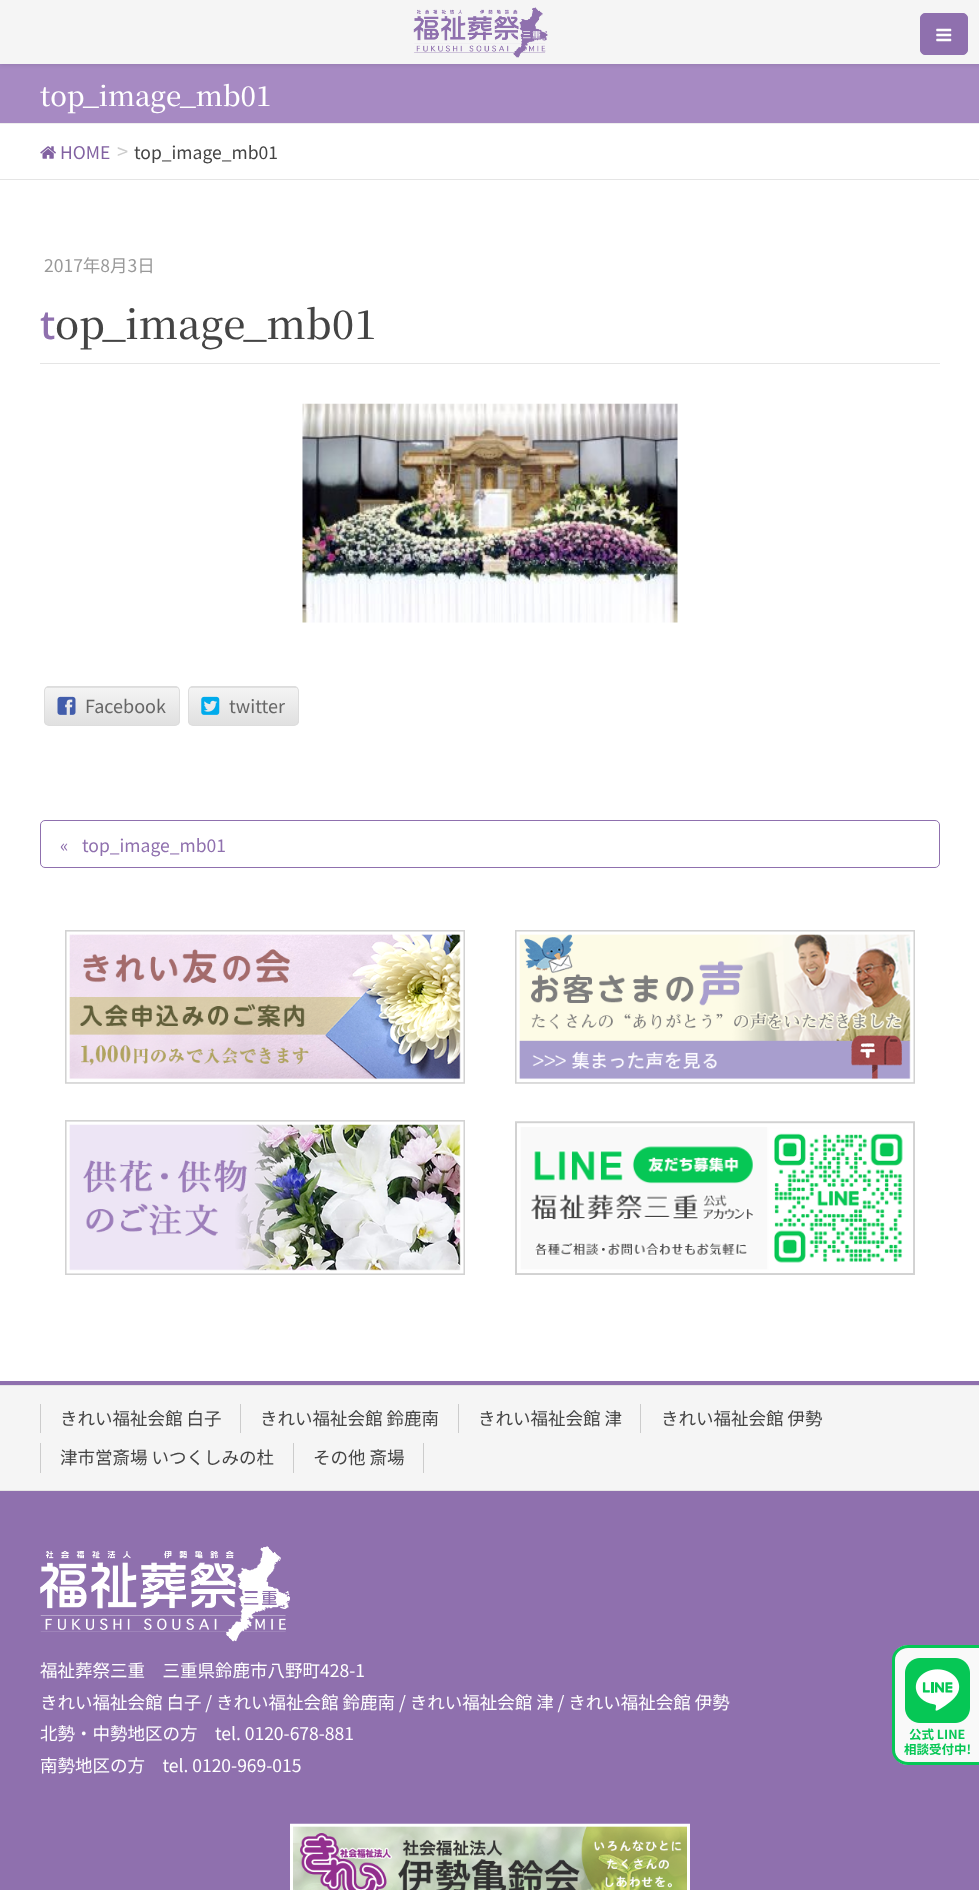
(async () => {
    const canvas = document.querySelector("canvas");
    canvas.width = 979;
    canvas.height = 1890;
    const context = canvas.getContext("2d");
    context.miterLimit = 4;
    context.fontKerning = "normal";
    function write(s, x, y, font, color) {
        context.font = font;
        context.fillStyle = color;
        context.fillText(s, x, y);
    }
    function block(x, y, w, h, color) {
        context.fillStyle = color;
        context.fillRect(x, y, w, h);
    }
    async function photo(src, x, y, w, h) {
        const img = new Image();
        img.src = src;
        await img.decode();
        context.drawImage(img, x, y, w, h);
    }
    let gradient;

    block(0, 0, 979, 1890, "rgb(255, 255, 255)");
    block(0, 64, 979, 59, "rgb(167, 138, 195)");
    context.fillStyle = "rgba(0, 0, 0, 0.1)";
    context.filter = "blur(2px)";
    context.beginPath();
    context.rect(0, 1, 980, 64);
    context.fill();
    context.filter = "none";
    block(0, 0, 979, 64, "rgb(245, 245, 245)");
    context.fillStyle = "rgb(143, 112, 174)";
    context.beginPath();
    context.roundRect(920.5, 13.5, 47, 41, 4.5);
    context.fill();
    context.strokeStyle = "rgb(143, 112, 174)";
    context.stroke();
    await photo("media/1.png", 936, 28, 16, 14);
    await photo("media/2.png", 413, 7, 135, 51);
    block(0, 123, 979, 1, "rgb(238, 238, 238)");
    write("top_image_mb01", 40, 106, "500 27.5px Noto Serif JP", "rgb(255, 255, 255)");
    block(0, 179, 979, 1, "rgb(229, 229, 229)");
    await photo("media/3.png", 40, 146, 16, 13);
    write("HOME", 60, 159, "17.5px Noto Sans JP", "rgb(130, 98, 162)");
    write(">", 117, 159, "20px Noto Sans JP", "rgb(204, 204, 204)");
    write("top_image_mb01", 134, 159, "17.5px Noto Sans JP", "rgb(68, 68, 68)");
    block(40, 363, 900, 1, "rgb(229, 229, 229)");
    write("2017年8月3日", 44, 272, "17.5px Noto Sans JP", "rgb(153, 153, 153)");
    write("t", 40, 339, "500 40px Noto Sans", "rgb(143, 112, 174)");
    write("op_image_mb01", 55, 339, "500 40px Noto Serif JP", "rgb(68, 68, 68)");
    await photo("media/4.png", 302, 403, 376, 220);
    context.save();
    context.beginPath();
    context.roundRect(44, 686, 136, 40, 5);
    context.clip();
    gradient = context.createLinearGradient(112, 650, 112, 688);
    gradient.addColorStop(0, "rgb(244, 244, 244)");
    gradient.addColorStop(1, "rgb(224, 224, 224)");
    context.fillStyle = gradient;
    context.fillRect(44, 686, 136, 2);
    gradient = context.createLinearGradient(112, 688, 112, 725);
    gradient.addColorStop(0, "rgb(244, 244, 244)");
    gradient.addColorStop(1, "rgb(224, 224, 224)");
    context.fillStyle = gradient;
    context.fillRect(44, 688, 136, 37);
    context.restore();
    context.beginPath();
    context.roundRect(44.5, 686.5, 135, 39, 4.5);
    context.strokeStyle = "rgb(221, 221, 221)";
    context.stroke();
    await photo("media/5.png", 57, 696, 19, 19);
    write("Facebook", 85, 713, "18px Noto Sans JP", "rgb(102, 102, 102)");
    context.save();
    context.beginPath();
    context.roundRect(188, 686, 111, 40, 5);
    context.clip();
    gradient = context.createLinearGradient(243, 650, 243, 688);
    gradient.addColorStop(0, "rgb(244, 244, 244)");
    gradient.addColorStop(1, "rgb(224, 224, 224)");
    context.fillStyle = gradient;
    context.fillRect(188, 686, 111, 2);
    gradient = context.createLinearGradient(243, 688, 243, 725);
    gradient.addColorStop(0, "rgb(244, 244, 244)");
    gradient.addColorStop(1, "rgb(224, 224, 224)");
    context.fillStyle = gradient;
    context.fillRect(188, 688, 111, 37);
    context.restore();
    context.beginPath();
    context.roundRect(188.5, 686.5, 110, 39, 4.5);
    context.stroke();
    await photo("media/6.png", 201, 696, 19, 19);
    write("twitter", 229, 713, "18px Noto Sans JP", "rgb(102, 102, 102)");
    context.beginPath();
    context.roundRect(40.5, 820.5, 899, 47, 4.5);
    context.strokeStyle = "rgb(143, 112, 174)";
    context.stroke();
    write("«", 60, 852, "17.5px Noto Sans JP", "rgb(143, 112, 174)");
    write("top_image_mb01", 82, 852, "17.5px Noto Sans JP", "rgb(143, 112, 174)");
    await photo("media/7.png", 65, 930, 400, 154);
    await photo("media/8.png", 515, 930, 400, 154);
    await photo("media/9.png", 65, 1120, 400, 155);
    await photo("media/10.png", 515, 1121, 400, 154);
    block(0, 1381, 979, 509, "rgb(143, 112, 174)");
    block(0, 1386, 979, 104, "rgb(245, 245, 245)");
    block(0, 1385, 979, 1, "rgb(229, 229, 229)");
    block(0, 1490, 979, 1, "rgb(229, 229, 229)");
    block(40, 1404, 1, 29, "rgb(204, 204, 204)");
    write("きれい福祉会館 白子", 60, 1425, "17.5px Noto Sans JP", "rgb(68, 68, 68)");
    block(240, 1404, 1, 29, "rgb(204, 204, 204)");
    write("きれい福祉会館 鈴鹿南", 260, 1425, "17.5px Noto Sans JP", "rgb(68, 68, 68)");
    block(458, 1404, 1, 29, "rgb(204, 204, 204)");
    write("きれい福祉会館 津", 478, 1425, "17.5px Noto Sans JP", "rgb(68, 68, 68)");
    block(640, 1404, 1, 29, "rgb(204, 204, 204)");
    write("きれい福祉会館 伊勢", 661, 1425, "17.5px Noto Sans JP", "rgb(68, 68, 68)");
    block(40, 1443, 1, 30, "rgb(204, 204, 204)");
    write("津市営斎場 いつくしみの杜", 60, 1464, "17.5px Noto Sans JP", "rgb(68, 68, 68)");
    block(423, 1443, 1, 30, "rgb(204, 204, 204)");
    block(293, 1443, 1, 30, "rgb(204, 204, 204)");
    write("その他 斎場", 313, 1464, "17.5px Noto Sans JP", "rgb(68, 68, 68)");
    await photo("media/11.png", 40, 1546, 250, 96);
    write("福祉葬祭三重　三重県鈴鹿市八野町428-1", 40, 1677, "17.5px Noto Sans JP", "rgb(255, 255, 255)");
    write("きれい福祉会館 白子 / きれい福祉会館 鈴鹿南 / きれい福祉会館 津 / きれい福祉会館 伊勢", 40, 1709, "17.5px Noto Sans JP", "rgb(255, 255, 255)");
    write("北勢・中勢地区の方　tel. 0120-678-881", 40, 1740, "17.5px Noto Sans JP", "rgb(255, 255, 255)");
    write("南勢地区の方　tel. 0120-969-015", 40, 1772, "17.5px Noto Sans JP", "rgb(255, 255, 255)");
    await photo("media/12.png", 290, 1823, 400, 67);
    context.fillStyle = "rgb(249, 249, 249)";
    context.beginPath();
    context.moveTo(908, 1645);
    context.lineTo(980, 1645);
    context.lineTo(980, 1765);
    context.lineTo(908, 1765);
    context.bezierCurveTo(899.5, 1765, 893, 1758.5, 893, 1750);
    context.lineTo(893, 1660);
    context.bezierCurveTo(893, 1651.5, 899.5, 1645, 908, 1645);
    context.closePath();
    context.fill();
    context.fillStyle = "rgb(6, 199, 85)";
    context.beginPath();
    context.moveTo(908, 1645);
    context.lineTo(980, 1645);
    context.lineTo(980, 1765);
    context.lineTo(908, 1765);
    context.bezierCurveTo(899, 1765, 892, 1758, 892, 1750);
    context.lineTo(892, 1660);
    context.bezierCurveTo(892, 1652, 899, 1645, 908, 1645);
    context.closePath();
    context.moveTo(908, 1648);
    context.lineTo(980, 1648);
    context.lineTo(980, 1762);
    context.lineTo(908, 1762);
    context.bezierCurveTo(901, 1762, 895, 1757, 895, 1750);
    context.lineTo(895, 1660);
    context.bezierCurveTo(895, 1653, 901, 1648, 908, 1648);
    context.closePath();
    context.fill("evenodd");
    await photo("media/13.png", 905, 1658, 65, 65);
    write("公式 LINE", 909, 1739, "bold 12.5px Noto Sans JP", "rgb(6, 199, 85)");
    write("相談受付中!", 904, 1754, "bold 12.5px Noto Sans JP", "rgb(6, 199, 85)");
})();
